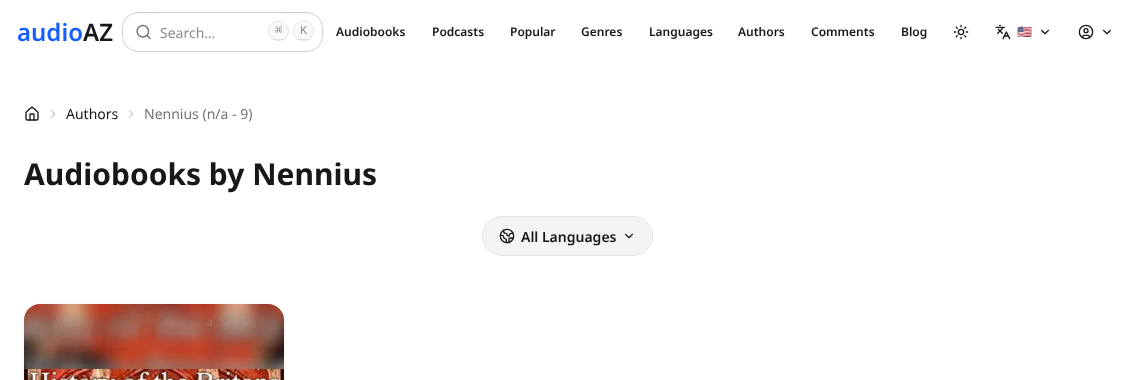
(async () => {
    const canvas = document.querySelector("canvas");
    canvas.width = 1135;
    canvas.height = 380;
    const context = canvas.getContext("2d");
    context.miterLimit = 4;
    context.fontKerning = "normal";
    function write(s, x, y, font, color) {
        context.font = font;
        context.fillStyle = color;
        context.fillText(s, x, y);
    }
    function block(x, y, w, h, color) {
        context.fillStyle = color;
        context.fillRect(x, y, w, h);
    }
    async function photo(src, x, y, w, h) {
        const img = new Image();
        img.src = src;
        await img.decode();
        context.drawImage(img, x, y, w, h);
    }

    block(0, 0, 1135, 380, "rgb(255, 255, 255)");
    write("audio", 17, 41, "600 24px Noto Sans", "rgb(21, 93, 252)");
    write("AZ", 83, 41, "600 24px Noto Sans", "rgb(24, 24, 27)");
    context.fillStyle = "rgb(250, 250, 250)";
    context.beginPath();
    context.moveTo(138, 14);
    context.lineTo(307, 14);
    context.bezierCurveTo(315, 14, 322, 21, 322, 29);
    context.bezierCurveTo(322, 6, 292, 13, 279, 13);
    context.lineTo(166, 13);
    context.bezierCurveTo(153, 13, 123, 6, 123, 29);
    context.bezierCurveTo(123, 21, 130, 14, 138, 14);
    context.closePath();
    context.fill();
    context.beginPath();
    context.roundRect(122.5, 12.5, 200, 39, 15.5);
    context.strokeStyle = "rgba(24, 24, 27, 0.2)";
    context.stroke();
    await photo("media/1.png", 136, 24, 15, 16);
    write("Search…", 160, 38, "14px Noto Sans", "rgb(140, 140, 141)");
    context.fillStyle = "rgb(250, 250, 250)";
    context.beginPath();
    context.roundRect(268.5, 21.5, 20, 19, 9.5);
    context.fill();
    context.strokeStyle = "rgb(229, 229, 229)";
    context.stroke();
    block(273, 39, 11, 1, "rgba(140, 140, 141, 0.2)");
    write("⌘", 275, 34, "12px DejaVu Sans Mono", "rgb(140, 140, 141)");
    context.fillStyle = "rgb(250, 250, 250)";
    context.beginPath();
    context.roundRect(293.5, 21.5, 20, 19, 9.5);
    context.fill();
    context.stroke();
    block(298, 39, 11, 1, "rgba(140, 140, 141, 0.2)");
    write("K", 300, 34, "12px Liberation Mono", "rgb(140, 140, 141)");
    write("Audiobooks", 336, 36, "600 12px Noto Sans", "rgb(24, 24, 27)");
    write("Podcasts", 432, 36, "600 12px Noto Sans", "rgb(24, 24, 27)");
    write("Popular", 510, 36, "600 12px Noto Sans", "rgb(24, 24, 27)");
    write("Genres", 581, 36, "600 12px Noto Sans", "rgb(24, 24, 27)");
    write("Languages", 649, 36, "600 12px Noto Sans", "rgb(24, 24, 27)");
    write("Authors", 738, 36, "600 12px Noto Sans", "rgb(24, 24, 27)");
    write("Comments", 811, 36, "600 12px Noto Sans", "rgb(24, 24, 27)");
    write("Blog", 901, 36, "600 12px Noto Sans", "rgb(24, 24, 27)");
    await photo("media/2.png", 953, 24, 16, 16);
    await photo("media/3.png", 995, 24, 16, 16);
    write("🇺🇸", 1017, 36, "12px Noto Color Emoji", "rgb(24, 24, 27)");
    await photo("media/4.png", 1040, 29, 10, 6);
    await photo("media/5.png", 1078, 24, 16, 16);
    await photo("media/4.png", 1102, 29, 10, 6);
    await photo("media/6.png", 25, 106, 14, 15);
    context.fillStyle = "rgb(163, 163, 164)";
    context.beginPath();
    context.moveTo(51, 110);
    context.lineTo(55, 114);
    context.lineTo(54.5, 114.5);
    context.lineTo(50.5, 110.5);
    context.closePath();
    context.fill();
    context.beginPath();
    context.moveTo(54.5, 113.5);
    context.lineTo(55, 114);
    context.lineTo(51, 118);
    context.lineTo(50.5, 117.5);
    context.closePath();
    context.fill();
    write("Authors", 66, 119, "14px Noto Sans", "rgb(24, 24, 27)");
    context.fillStyle = "rgb(200, 200, 200)";
    context.beginPath();
    context.moveTo(129.5, 110);
    context.lineTo(133.5, 114);
    context.lineTo(132, 114);
    context.lineTo(128.5, 110.5);
    context.closePath();
    context.moveTo(133.5, 114);
    context.lineTo(129.5, 118);
    context.lineTo(128.5, 117.5);
    context.lineTo(132, 114);
    context.closePath();
    context.fill();
    write("Nennius (n/a - 9)", 144, 119, "14px Noto Sans", "rgb(116, 116, 118)");
    write("Audiobooks by Nennius", 24, 185, "bold 30px Noto Sans", "rgb(24, 24, 27)");
    context.fillStyle = "rgb(244, 244, 245)";
    context.beginPath();
    context.roundRect(482.5, 216.5, 170, 39, 19.5);
    context.fill();
    context.strokeStyle = "rgb(228, 228, 229)";
    context.stroke();
    await photo("media/7.png", 499, 228, 16, 16);
    write("All Languages", 521, 242, "600 14px Noto Sans", "rgb(24, 24, 27)");
    await photo("media/8.png", 624, 233, 10, 6);
    context.fillStyle = "rgba(0, 0, 0, 0.1)";
    context.filter = "blur(1.5px)";
    context.beginPath();
    context.roundRect(24, 305, 260, 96, 16);
    context.fill();
    context.filter = "none";
    context.fillStyle = "rgb(241, 240, 222)";
    context.beginPath();
    context.moveTo(40, 304);
    context.lineTo(268, 304);
    context.bezierCurveTo(277, 304, 284, 311, 284, 320);
    context.lineTo(284, 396);
    context.lineTo(24, 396);
    context.lineTo(24, 320);
    context.bezierCurveTo(24, 311, 31, 304, 40, 304);
    context.closePath();
    context.fill();
    await photo("media/9.png", 24, 304, 260, 76);
    write("a", 206, 326, "12px Noto Sans", "rgb(164, 116, 100)");
})();
